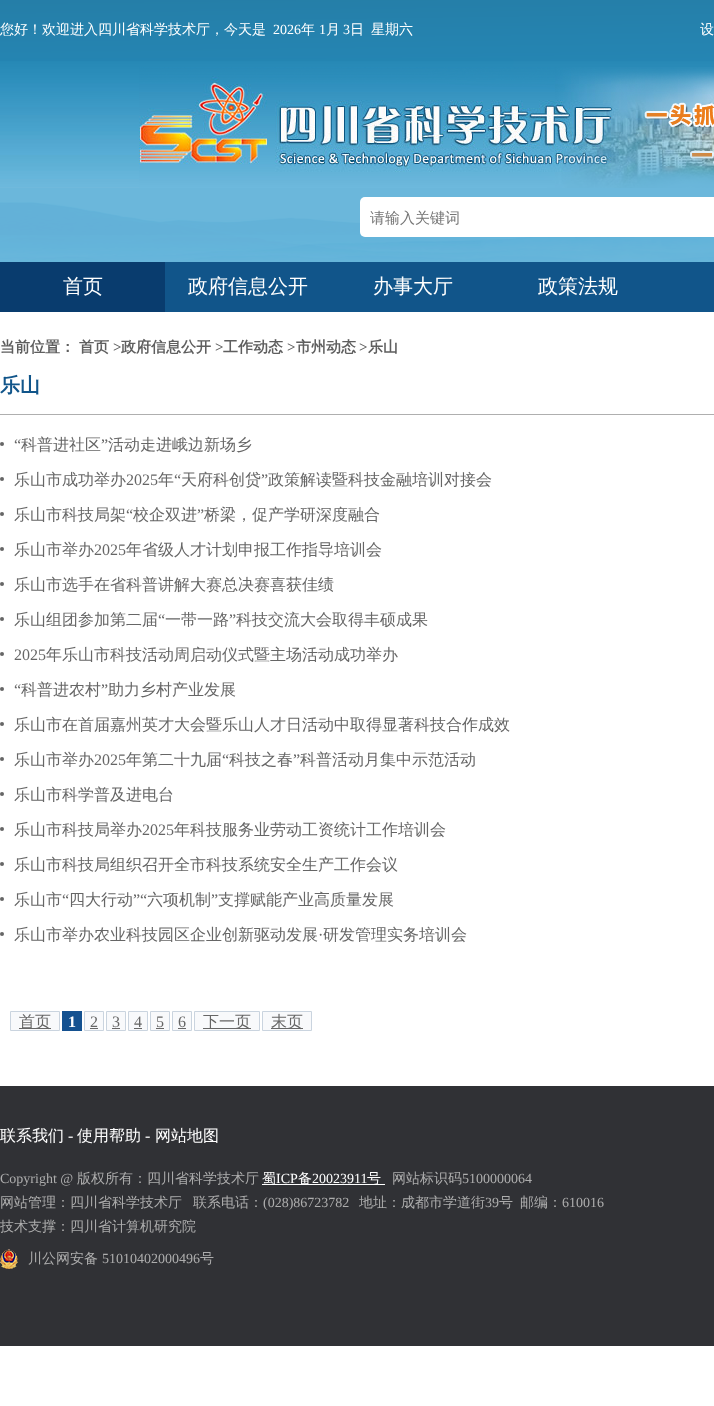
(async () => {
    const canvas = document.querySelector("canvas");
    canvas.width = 714;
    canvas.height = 1406;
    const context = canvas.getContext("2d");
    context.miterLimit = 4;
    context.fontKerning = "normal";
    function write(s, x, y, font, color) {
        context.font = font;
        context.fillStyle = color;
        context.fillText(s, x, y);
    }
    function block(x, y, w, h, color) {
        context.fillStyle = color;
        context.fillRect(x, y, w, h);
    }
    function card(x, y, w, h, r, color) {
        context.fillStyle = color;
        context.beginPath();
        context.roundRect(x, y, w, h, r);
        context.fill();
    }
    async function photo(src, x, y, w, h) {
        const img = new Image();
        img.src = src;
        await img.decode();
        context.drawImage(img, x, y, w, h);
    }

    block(0, 0, 714, 1406, "rgb(255, 255, 255)");
    await photo("media/1.png", 0, 0, 714, 262);
    write("您好！欢迎进入四川省科学技术厅，今天是", 0, 34, "500 14px WenQuanYi Zen Hei", "rgb(255, 255, 255)");
    write("2026", 273, 34, "14px Liberation Serif", "rgb(255, 255, 255)");
    write("年", 301, 34, "500 14px WenQuanYi Zen Hei", "rgb(255, 255, 255)");
    write("1", 319, 34, "14px Liberation Serif", "rgb(255, 255, 255)");
    write("月", 326, 34, "500 14px WenQuanYi Zen Hei", "rgb(255, 255, 255)");
    write("3", 343, 34, "14px Liberation Serif", "rgb(255, 255, 255)");
    write("日", 350, 34, "500 14px WenQuanYi Zen Hei", "rgb(255, 255, 255)");
    write("星期六", 371, 34, "500 14px WenQuanYi Zen Hei", "rgb(255, 255, 255)");
    write("设", 700, 34, "500 14px WenQuanYi Zen Hei", "rgb(255, 255, 255)");
    await photo("media/2.png", 139, 67, 575, 121);
    card(360, 197, 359, 40, 5, "rgb(255, 255, 255)");
    write("请输入关键词", 370, 223, "500 15px WenQuanYi Zen Hei", "rgb(117, 117, 117)");
    block(165, 262, 549, 50, "rgb(17, 85, 138)");
    block(0, 262, 165, 50, "rgb(9, 60, 110)");
    write("首页", 63, 293, "500 20px WenQuanYi Zen Hei", "rgb(255, 255, 255)");
    write("政府信息公开", 188, 293, "500 20px WenQuanYi Zen Hei", "rgb(255, 255, 255)");
    write("办事大厅", 373, 293, "500 20px WenQuanYi Zen Hei", "rgb(255, 255, 255)");
    write("政策法规", 538, 293, "500 20px WenQuanYi Zen Hei", "rgb(255, 255, 255)");
    write("当前位置：", 0, 352, "bold 15px WenQuanYi Zen Hei", "rgb(95, 95, 95)");
    write("首页", 79, 352, "bold 15px WenQuanYi Zen Hei", "rgb(95, 95, 95)");
    write(">", 113, 352, "bold 15px Liberation Serif", "rgb(95, 95, 95)");
    write("政府信息公开", 121, 352, "bold 15px WenQuanYi Zen Hei", "rgb(95, 95, 95)");
    write(">", 215, 352, "bold 15px Liberation Serif", "rgb(95, 95, 95)");
    write("工作动态", 223, 352, "bold 15px WenQuanYi Zen Hei", "rgb(95, 95, 95)");
    write(">", 287, 352, "bold 15px Liberation Serif", "rgb(95, 95, 95)");
    write("市州动态", 296, 352, "bold 15px WenQuanYi Zen Hei", "rgb(95, 95, 95)");
    write(">", 359, 352, "bold 15px Liberation Serif", "rgb(95, 95, 95)");
    write("乐山", 368, 352, "bold 15px WenQuanYi Zen Hei", "rgb(95, 95, 95)");
    block(0, 414, 714, 1, "rgb(175, 175, 175)");
    write("乐山", 0, 392, "bold 20px WenQuanYi Zen Hei", "rgb(17, 85, 138)");
    context.fillStyle = "rgb(102, 102, 102)";
    context.beginPath();
    context.arc(2, 444, 2, 0, Math.PI * 2);
    context.fill();
    write("“", 14, 450, "16px Liberation Serif", "rgb(102, 102, 102)");
    write("科普进社区", 21, 450, "500 16px WenQuanYi Zen Hei", "rgb(102, 102, 102)");
    write("”", 101, 450, "16px Liberation Serif", "rgb(102, 102, 102)");
    write("活动走进峨边新场乡", 108, 450, "500 16px WenQuanYi Zen Hei", "rgb(102, 102, 102)");
    context.beginPath();
    context.arc(2, 479, 2, 0, Math.PI * 2);
    context.fill();
    write("乐山市成功举办", 14, 485, "500 16px WenQuanYi Zen Hei", "rgb(102, 102, 102)");
    write("2025", 126, 485, "16px Liberation Serif", "rgb(102, 102, 102)");
    write("年", 158, 485, "500 16px WenQuanYi Zen Hei", "rgb(102, 102, 102)");
    write("“", 174, 485, "16px Liberation Serif", "rgb(102, 102, 102)");
    write("天府科创贷", 181, 485, "500 16px WenQuanYi Zen Hei", "rgb(102, 102, 102)");
    write("”", 261, 485, "16px Liberation Serif", "rgb(102, 102, 102)");
    write("政策解读暨科技金融培训对接会", 268, 485, "500 16px WenQuanYi Zen Hei", "rgb(102, 102, 102)");
    context.beginPath();
    context.arc(2, 514, 2, 0, Math.PI * 2);
    context.fill();
    write("乐山市科技局架", 14, 520, "500 16px WenQuanYi Zen Hei", "rgb(102, 102, 102)");
    write("“", 126, 520, "16px Liberation Serif", "rgb(102, 102, 102)");
    write("校企双进", 133, 520, "500 16px WenQuanYi Zen Hei", "rgb(102, 102, 102)");
    write("”", 197, 520, "16px Liberation Serif", "rgb(102, 102, 102)");
    write("桥梁，促产学研深度融合", 204, 520, "500 16px WenQuanYi Zen Hei", "rgb(102, 102, 102)");
    context.beginPath();
    context.arc(2, 549, 2, 0, Math.PI * 2);
    context.fill();
    write("乐山市举办", 14, 555, "500 16px WenQuanYi Zen Hei", "rgb(102, 102, 102)");
    write("2025", 94, 555, "16px Liberation Serif", "rgb(102, 102, 102)");
    write("年省级人才计划申报工作指导培训会", 126, 555, "500 16px WenQuanYi Zen Hei", "rgb(102, 102, 102)");
    context.beginPath();
    context.arc(2, 584, 2, 0, Math.PI * 2);
    context.fill();
    write("乐山市选手在省科普讲解大赛总决赛喜获佳绩", 14, 590, "500 16px WenQuanYi Zen Hei", "rgb(102, 102, 102)");
    context.beginPath();
    context.arc(2, 619, 2, 0, Math.PI * 2);
    context.fill();
    write("乐山组团参加第二届", 14, 625, "500 16px WenQuanYi Zen Hei", "rgb(102, 102, 102)");
    write("“", 158, 625, "16px Liberation Serif", "rgb(102, 102, 102)");
    write("一带一路", 165, 625, "500 16px WenQuanYi Zen Hei", "rgb(102, 102, 102)");
    write("”", 229, 625, "16px Liberation Serif", "rgb(102, 102, 102)");
    write("科技交流大会取得丰硕成果", 236, 625, "500 16px WenQuanYi Zen Hei", "rgb(102, 102, 102)");
    context.beginPath();
    context.arc(2, 654, 2, 0, Math.PI * 2);
    context.fill();
    write("2025", 14, 660, "16px Liberation Serif", "rgb(102, 102, 102)");
    write("年乐山市科技活动周启动仪式暨主场活动成功举办", 46, 660, "500 16px WenQuanYi Zen Hei", "rgb(102, 102, 102)");
    context.beginPath();
    context.arc(2, 689, 2, 0, Math.PI * 2);
    context.fill();
    write("“", 14, 695, "16px Liberation Serif", "rgb(102, 102, 102)");
    write("科普进农村", 21, 695, "500 16px WenQuanYi Zen Hei", "rgb(102, 102, 102)");
    write("”", 101, 695, "16px Liberation Serif", "rgb(102, 102, 102)");
    write("助力乡村产业发展", 108, 695, "500 16px WenQuanYi Zen Hei", "rgb(102, 102, 102)");
    context.beginPath();
    context.arc(2, 724, 2, 0, Math.PI * 2);
    context.fill();
    write("乐山市在首届嘉州英才大会暨乐山人才日活动中取得显著科技合作成效", 14, 730, "500 16px WenQuanYi Zen Hei", "rgb(102, 102, 102)");
    context.beginPath();
    context.arc(2, 759, 2, 0, Math.PI * 2);
    context.fill();
    write("乐山市举办", 14, 765, "500 16px WenQuanYi Zen Hei", "rgb(102, 102, 102)");
    write("2025", 94, 765, "16px Liberation Serif", "rgb(102, 102, 102)");
    write("年第二十九届", 126, 765, "500 16px WenQuanYi Zen Hei", "rgb(102, 102, 102)");
    write("“", 222, 765, "16px Liberation Serif", "rgb(102, 102, 102)");
    write("科技之春", 229, 765, "500 16px WenQuanYi Zen Hei", "rgb(102, 102, 102)");
    write("”", 293, 765, "16px Liberation Serif", "rgb(102, 102, 102)");
    write("科普活动月集中示范活动", 300, 765, "500 16px WenQuanYi Zen Hei", "rgb(102, 102, 102)");
    context.beginPath();
    context.arc(2, 794, 2, 0, Math.PI * 2);
    context.fill();
    write("乐山市科学普及进电台", 14, 800, "500 16px WenQuanYi Zen Hei", "rgb(102, 102, 102)");
    context.beginPath();
    context.arc(2, 829, 2, 0, Math.PI * 2);
    context.fill();
    write("乐山市科技局举办", 14, 835, "500 16px WenQuanYi Zen Hei", "rgb(102, 102, 102)");
    write("2025", 142, 835, "16px Liberation Serif", "rgb(102, 102, 102)");
    write("年科技服务业劳动工资统计工作培训会", 174, 835, "500 16px WenQuanYi Zen Hei", "rgb(102, 102, 102)");
    context.beginPath();
    context.arc(2, 864, 2, 0, Math.PI * 2);
    context.fill();
    write("乐山市科技局组织召开全市科技系统安全生产工作会议", 14, 870, "500 16px WenQuanYi Zen Hei", "rgb(102, 102, 102)");
    context.beginPath();
    context.arc(2, 899, 2, 0, Math.PI * 2);
    context.fill();
    write("乐山市", 14, 905, "500 16px WenQuanYi Zen Hei", "rgb(102, 102, 102)");
    write("“", 62, 905, "16px Liberation Serif", "rgb(102, 102, 102)");
    write("四大行动", 69, 905, "500 16px WenQuanYi Zen Hei", "rgb(102, 102, 102)");
    write("”“", 133, 905, "16px Liberation Serif", "rgb(102, 102, 102)");
    write("六项机制", 147, 905, "500 16px WenQuanYi Zen Hei", "rgb(102, 102, 102)");
    write("”", 211, 905, "16px Liberation Serif", "rgb(102, 102, 102)");
    write("支撑赋能产业高质量发展", 218, 905, "500 16px WenQuanYi Zen Hei", "rgb(102, 102, 102)");
    context.beginPath();
    context.arc(2, 934, 2, 0, Math.PI * 2);
    context.fill();
    write("乐山市举办农业科技园区企业创新驱动发展", 14, 940, "500 16px WenQuanYi Zen Hei", "rgb(102, 102, 102)");
    write("·", 318, 940, "16px Liberation Serif", "rgb(102, 102, 102)");
    write("研发管理实务培训会", 323, 940, "500 16px WenQuanYi Zen Hei", "rgb(102, 102, 102)");
    context.fillStyle = "rgb(248, 249, 251)";
    context.beginPath();
    context.rect(10.5, 1011.5, 49, 19);
    context.fill();
    context.strokeStyle = "rgb(202, 212, 223)";
    context.stroke();
    block(19, 1028, 32, 1, "rgb(102, 102, 102)");
    write("首页", 19, 1027, "500 16px WenQuanYi Zen Hei", "rgb(102, 102, 102)");
    block(62, 1011, 20, 20, "rgb(20, 81, 144)");
    write("1", 68, 1027, "bold 16px Liberation Serif", "rgb(255, 255, 255)");
    context.fillStyle = "rgb(248, 249, 251)";
    context.beginPath();
    context.rect(84.5, 1011.5, 19, 19);
    context.fill();
    context.stroke();
    write("2", 90, 1027, "16px Liberation Serif", "rgb(102, 102, 102)");
    block(90, 1028, 8, 1, "rgb(102, 102, 102)");
    context.fillStyle = "rgb(248, 249, 251)";
    context.beginPath();
    context.rect(106.5, 1011.5, 19, 19);
    context.fill();
    context.stroke();
    write("3", 112, 1027, "16px Liberation Serif", "rgb(102, 102, 102)");
    block(112, 1028, 8, 1, "rgb(102, 102, 102)");
    context.fillStyle = "rgb(248, 249, 251)";
    context.beginPath();
    context.rect(128.5, 1011.5, 19, 19);
    context.fill();
    context.stroke();
    write("4", 134, 1027, "16px Liberation Serif", "rgb(102, 102, 102)");
    block(134, 1028, 8, 1, "rgb(102, 102, 102)");
    context.fillStyle = "rgb(248, 249, 251)";
    context.beginPath();
    context.rect(150.5, 1011.5, 19, 19);
    context.fill();
    context.stroke();
    write("5", 156, 1027, "16px Liberation Serif", "rgb(102, 102, 102)");
    block(156, 1028, 8, 1, "rgb(102, 102, 102)");
    context.fillStyle = "rgb(248, 249, 251)";
    context.beginPath();
    context.rect(172.5, 1011.5, 19, 19);
    context.fill();
    context.stroke();
    write("6", 178, 1027, "16px Liberation Serif", "rgb(102, 102, 102)");
    block(178, 1028, 8, 1, "rgb(102, 102, 102)");
    context.fillStyle = "rgb(248, 249, 251)";
    context.beginPath();
    context.rect(194.5, 1011.5, 65, 19);
    context.fill();
    context.stroke();
    block(203, 1028, 48, 1, "rgb(102, 102, 102)");
    write("下一页", 203, 1027, "500 16px WenQuanYi Zen Hei", "rgb(102, 102, 102)");
    context.fillStyle = "rgb(248, 249, 251)";
    context.beginPath();
    context.rect(262.5, 1011.5, 49, 19);
    context.fill();
    context.stroke();
    block(271, 1028, 32, 1, "rgb(102, 102, 102)");
    write("末页", 271, 1027, "500 16px WenQuanYi Zen Hei", "rgb(102, 102, 102)");
    block(0, 1086, 714, 260, "rgb(48, 49, 53)");
    write("联系我们", 0, 1141, "500 16px WenQuanYi Zen Hei", "rgb(255, 255, 255)");
    write("-", 68, 1141, "16px Liberation Serif", "rgb(255, 255, 255)");
    write("使用帮助", 77, 1141, "500 16px WenQuanYi Zen Hei", "rgb(255, 255, 255)");
    write("-", 145, 1141, "16px Liberation Serif", "rgb(255, 255, 255)");
    write("网站地图", 155, 1141, "500 16px WenQuanYi Zen Hei", "rgb(255, 255, 255)");
    write("Copyright @", 0, 1183, "14px Liberation Serif", "rgb(173, 173, 173)");
    write("版权所有：四川省科学技术厅", 77, 1183, "500 14px WenQuanYi Zen Hei", "rgb(173, 173, 173)");
    block(262, 1184, 123, 1, "rgb(255, 255, 255)");
    write("蜀", 262, 1183, "500 14px WenQuanYi Zen Hei", "rgb(255, 255, 255)");
    write("ICP", 276, 1183, "14px Liberation Serif", "rgb(255, 255, 255)");
    write("备", 298, 1183, "500 14px WenQuanYi Zen Hei", "rgb(255, 255, 255)");
    write("20023911", 312, 1183, "14px Liberation Serif", "rgb(255, 255, 255)");
    write("号", 367, 1183, "500 14px WenQuanYi Zen Hei", "rgb(255, 255, 255)");
    write("网站标识码", 392, 1183, "500 14px WenQuanYi Zen Hei", "rgb(173, 173, 173)");
    write("5100000064", 462, 1183, "14px Liberation Serif", "rgb(173, 173, 173)");
    write("网站管理：四川省科学技术厅", 0, 1207, "500 14px WenQuanYi Zen Hei", "rgb(173, 173, 173)");
    write("联系电话：", 193, 1207, "500 14px WenQuanYi Zen Hei", "rgb(173, 173, 173)");
    write("(028)86723782", 263, 1207, "14px Liberation Serif", "rgb(173, 173, 173)");
    write("地址：成都市学道街", 359, 1207, "500 14px WenQuanYi Zen Hei", "rgb(173, 173, 173)");
    write("39", 485, 1207, "14px Liberation Serif", "rgb(173, 173, 173)");
    write("号", 499, 1207, "500 14px WenQuanYi Zen Hei", "rgb(173, 173, 173)");
    write("邮编：", 520, 1207, "500 14px WenQuanYi Zen Hei", "rgb(173, 173, 173)");
    write("610016", 562, 1207, "14px Liberation Serif", "rgb(173, 173, 173)");
    write("技术支撑：四川省计算机研究院", 0, 1231, "500 14px WenQuanYi Zen Hei", "rgb(173, 173, 173)");
    await photo("media/3.png", 0, 1249, 18, 20);
    write("川公网安备", 28, 1263, "500 14px WenQuanYi Zen Hei", "rgb(173, 173, 173)");
    write("51010402000496", 102, 1263, "14px Liberation Serif", "rgb(173, 173, 173)");
    write("号", 200, 1263, "500 14px WenQuanYi Zen Hei", "rgb(173, 173, 173)");
})();
